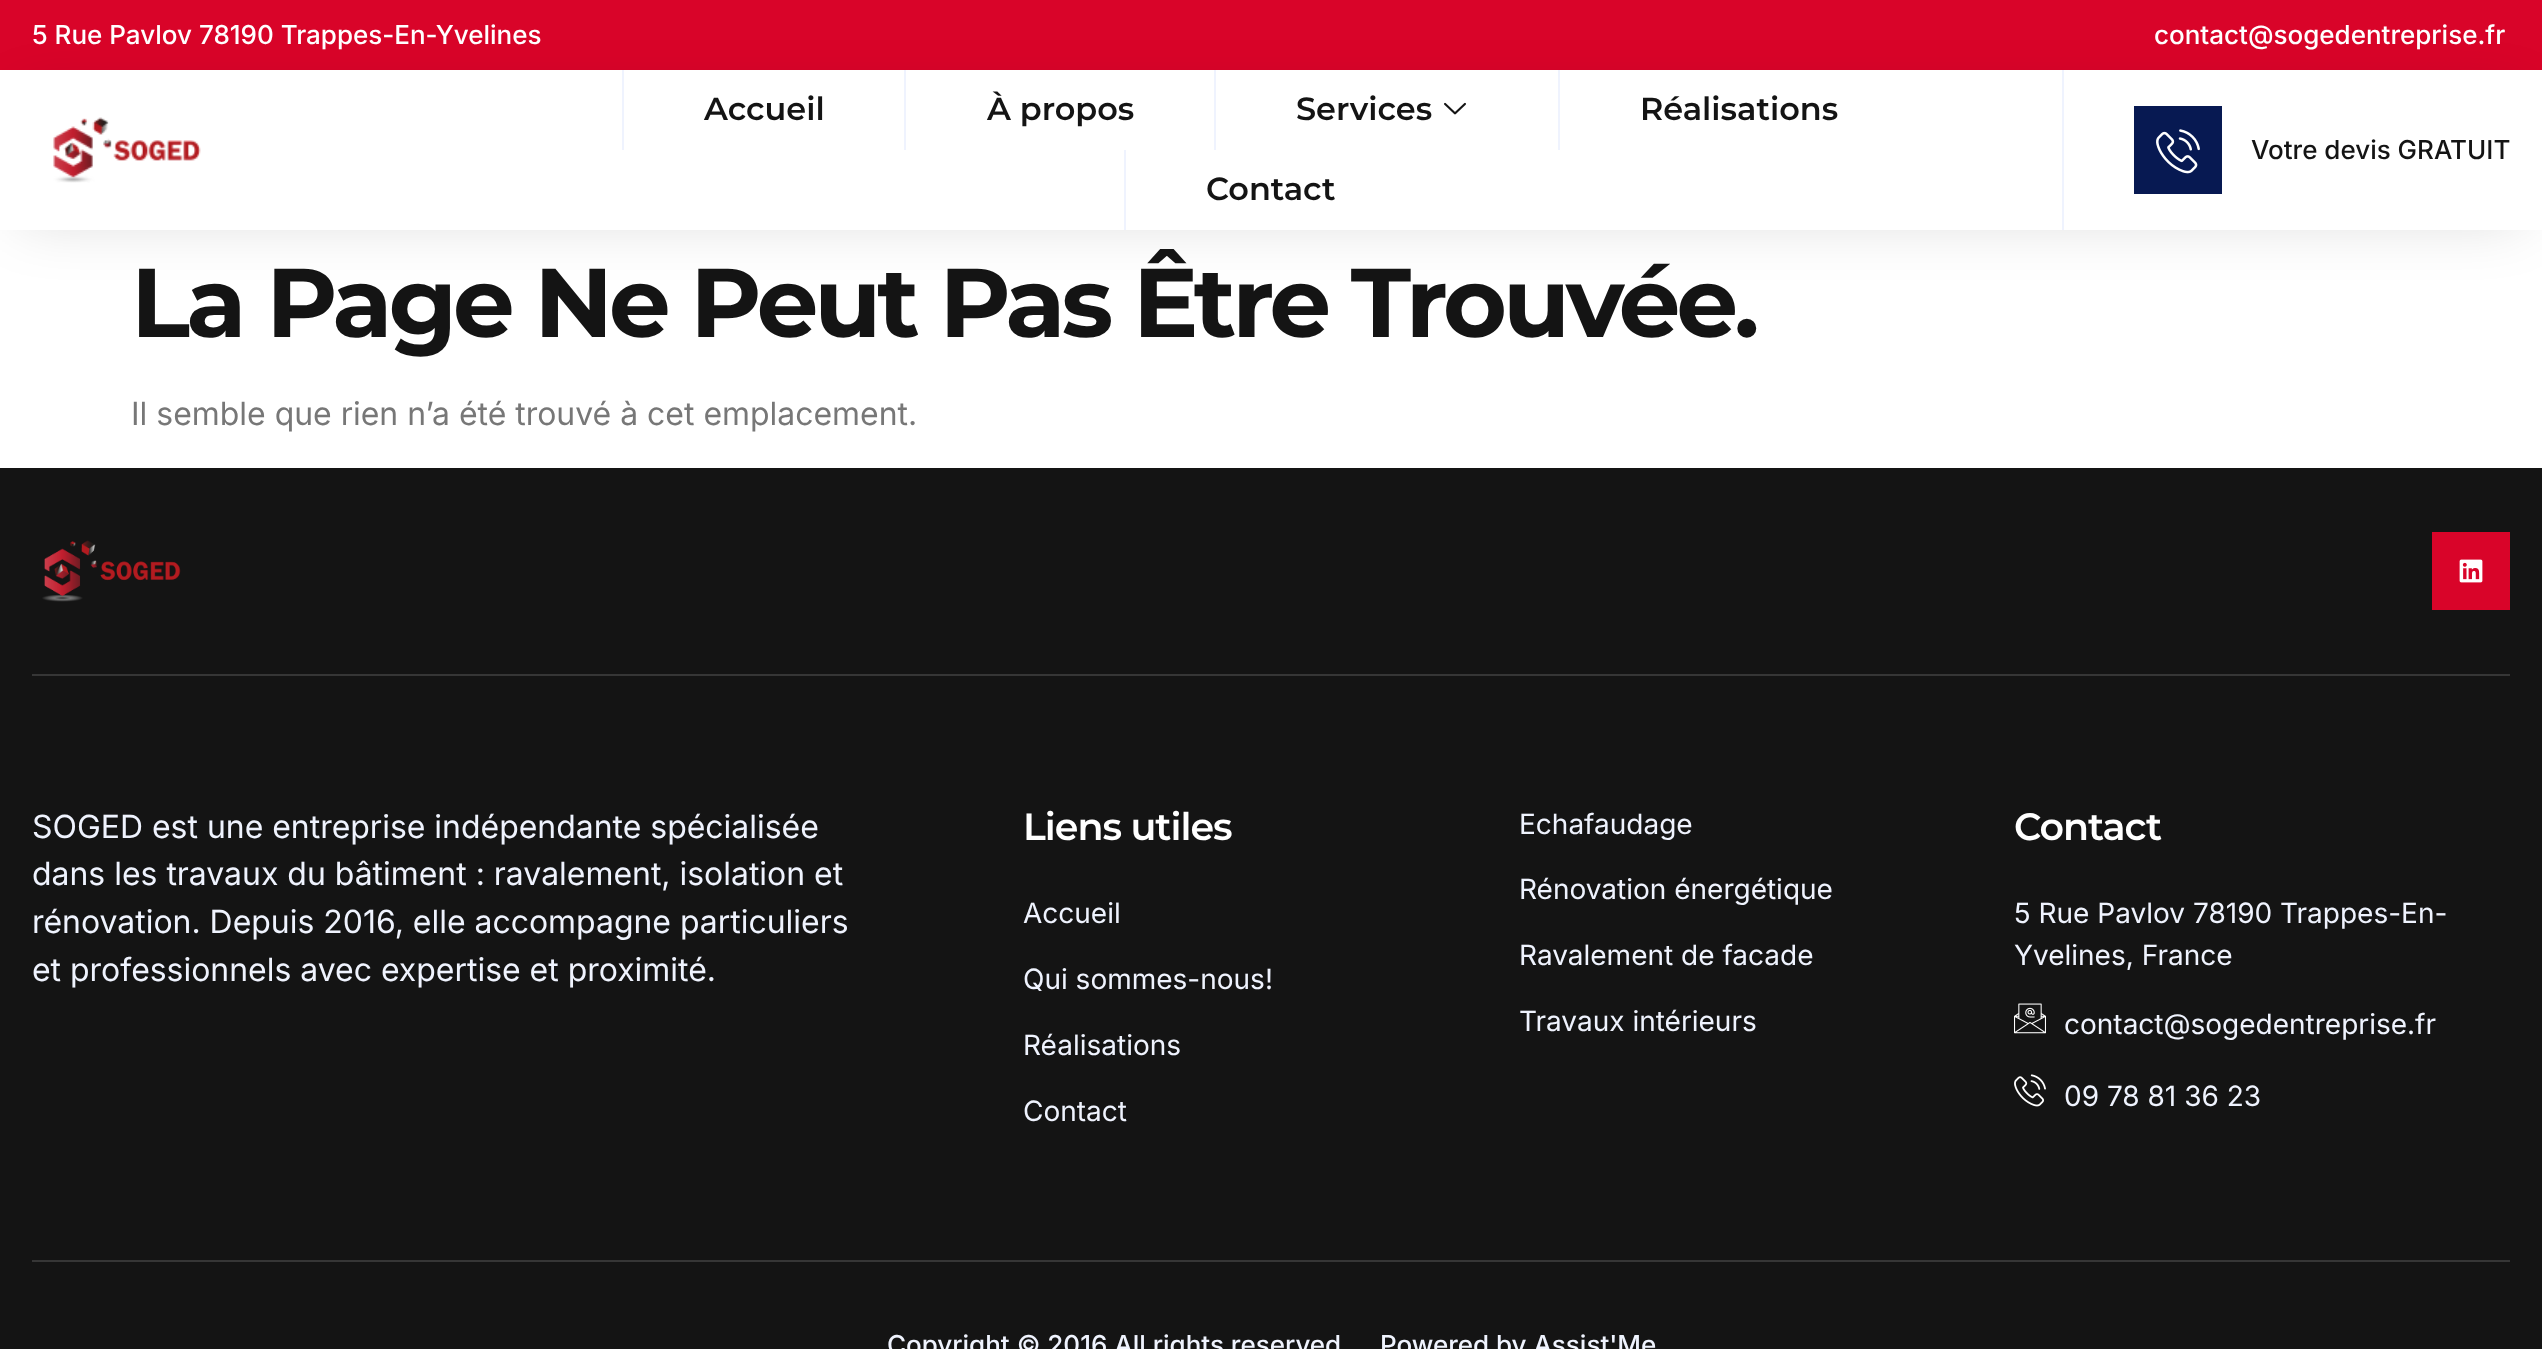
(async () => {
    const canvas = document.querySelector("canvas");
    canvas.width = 2542;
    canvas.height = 1349;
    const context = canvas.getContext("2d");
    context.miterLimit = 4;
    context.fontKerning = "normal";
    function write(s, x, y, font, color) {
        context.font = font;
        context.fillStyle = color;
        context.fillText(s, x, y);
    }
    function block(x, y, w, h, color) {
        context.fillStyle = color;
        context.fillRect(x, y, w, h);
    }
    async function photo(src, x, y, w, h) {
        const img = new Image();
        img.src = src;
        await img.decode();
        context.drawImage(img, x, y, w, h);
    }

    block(0, 0, 2542, 1349, "rgb(255, 255, 255)");
    block(0, 0, 2542, 70, "rgb(217, 4, 41)");
    write("5 Rue Pavlov 78190 Trappes-En-Yvelines", 32, 44, "500 26px Inter", "rgb(255, 255, 255)");
    write("contact@sogedentreprise.fr", 2154, 44, "500 26px Inter", "rgb(255, 255, 255)");
    context.save();
    context.beginPath();
    context.moveTo(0, 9);
    context.lineTo(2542, 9);
    context.lineTo(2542, 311);
    context.lineTo(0, 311);
    context.closePath();
    context.moveTo(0, 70);
    context.lineTo(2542, 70);
    context.lineTo(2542, 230);
    context.lineTo(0, 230);
    context.closePath();
    context.clip("evenodd");
    context.fillStyle = "rgba(0, 0, 0, 0.15)";
    context.filter = "blur(30px)";
    context.beginPath();
    context.rect(20, 100, 2502, 120);
    context.fill();
    context.filter = "none";
    context.restore();
    await photo("media/1.png", 53, 117, 148, 66);
    block(2062, 70, 2, 160, "rgb(239, 243, 254)");
    block(622, 70, 2, 80, "rgb(239, 243, 254)");
    write("Accueil", 704, 120, "600 31.95px Montserrat", "rgb(20, 20, 20)");
    block(904, 70, 2, 80, "rgb(239, 243, 254)");
    write("À propos", 987, 120, "600 31.95px Montserrat", "rgb(20, 20, 20)");
    block(1214, 70, 2, 80, "rgb(239, 243, 254)");
    write("Services", 1296, 120, "600 31.95px Montserrat", "rgb(20, 20, 20)");
    await photo("media/2.png", 1444, 102, 22, 13);
    block(1558, 70, 2, 80, "rgb(239, 243, 254)");
    write("Réalisations", 1640, 120, "600 31.95px Montserrat", "rgb(20, 20, 20)");
    block(1124, 150, 2, 80, "rgb(239, 243, 254)");
    write("Contact", 1206, 200, "600 31.95px Montserrat", "rgb(20, 20, 20)");
    block(2134, 106, 88, 88, "rgb(7, 25, 82)");
    await photo("media/3.png", 2156, 129, 44, 45);
    write("Votre devis GRATUIT", 2251, 159, "500 26px Inter", "rgb(20, 20, 20)");
    context.letterSpacing = "-4px";
    write("La Page Ne Peut Pas Être Trouvée.", 131, 337, "bold 97.6px Montserrat", "rgb(20, 20, 20)");
    context.letterSpacing = "0px";
    write("Il semble que rien n’a été trouvé à cet emplacement.", 131, 425, "31.95px Inter", "rgb(119, 119, 119)");
    block(0, 468, 2542, 881, "rgb(20, 20, 20)");
    block(32, 674, 2478, 2, "rgb(54, 54, 54)");
    await photo("media/4.png", 42, 540, 139, 62);
    block(2432, 532, 78, 78, "rgb(217, 4, 41)");
    await photo("media/5.png", 2459, 559, 24, 24);
    write("SOGED est une entreprise indépendante spécialisée", 32, 838, "31.95px Inter", "rgb(239, 243, 254)");
    write("dans les travaux du bâtiment : ravalement, isolation et", 32, 885, "31.95px Inter", "rgb(239, 243, 254)");
    write("rénovation. Depuis 2016, elle accompagne particuliers", 32, 933, "31.95px Inter", "rgb(239, 243, 254)");
    write("et professionnels avec expertise et proximité.", 32, 981, "31.95px Inter", "rgb(239, 243, 254)");
    context.letterSpacing = "-1px";
    write("Liens utiles", 1023, 840, "600 38px Montserrat", "rgb(255, 255, 255)");
    context.letterSpacing = "0px";
    write("Accueil", 1023, 923, "28px Inter", "rgb(239, 243, 254)");
    write("Qui sommes-nous!", 1023, 989, "28px Inter", "rgb(239, 243, 254)");
    write("Réalisations", 1023, 1055, "28px Inter", "rgb(239, 243, 254)");
    write("Contact", 1023, 1121, "28px Inter", "rgb(239, 243, 254)");
    write("Echafaudage", 1519, 834, "28px Inter", "rgb(239, 243, 254)");
    write("Rénovation énergétique", 1519, 899, "28px Inter", "rgb(239, 243, 254)");
    write("Ravalement de facade", 1519, 965, "28px Inter", "rgb(239, 243, 254)");
    write("Travaux intérieurs", 1519, 1031, "28px Inter", "rgb(239, 243, 254)");
    context.letterSpacing = "-1px";
    write("Contact", 2014, 840, "600 38px Montserrat", "rgb(255, 255, 255)");
    context.letterSpacing = "0px";
    write("5 Rue Pavlov 78190 Trappes-En-", 2014, 923, "28px Inter", "rgb(239, 243, 254)");
    write("Yvelines, France", 2014, 965, "28px Inter", "rgb(239, 243, 254)");
    await photo("media/6.png", 2014, 1003, 32, 31);
    write("contact@sogedentreprise.fr", 2064, 1034, "28px Inter", "rgb(239, 243, 254)");
    await photo("media/7.png", 2014, 1074, 32, 33);
    write("09 78 81 36 23", 2064, 1106, "28px Inter", "rgb(239, 243, 254)");
    block(32, 1260, 2478, 2, "rgb(54, 54, 54)");
    write("Copyright © 2016 All rights reserved", 887, 1354, "500 26px Inter", "rgb(239, 243, 254)");
    write("Powered by Assist'Me", 1380, 1354, "500 26px Inter", "rgb(239, 243, 254)");
})();
